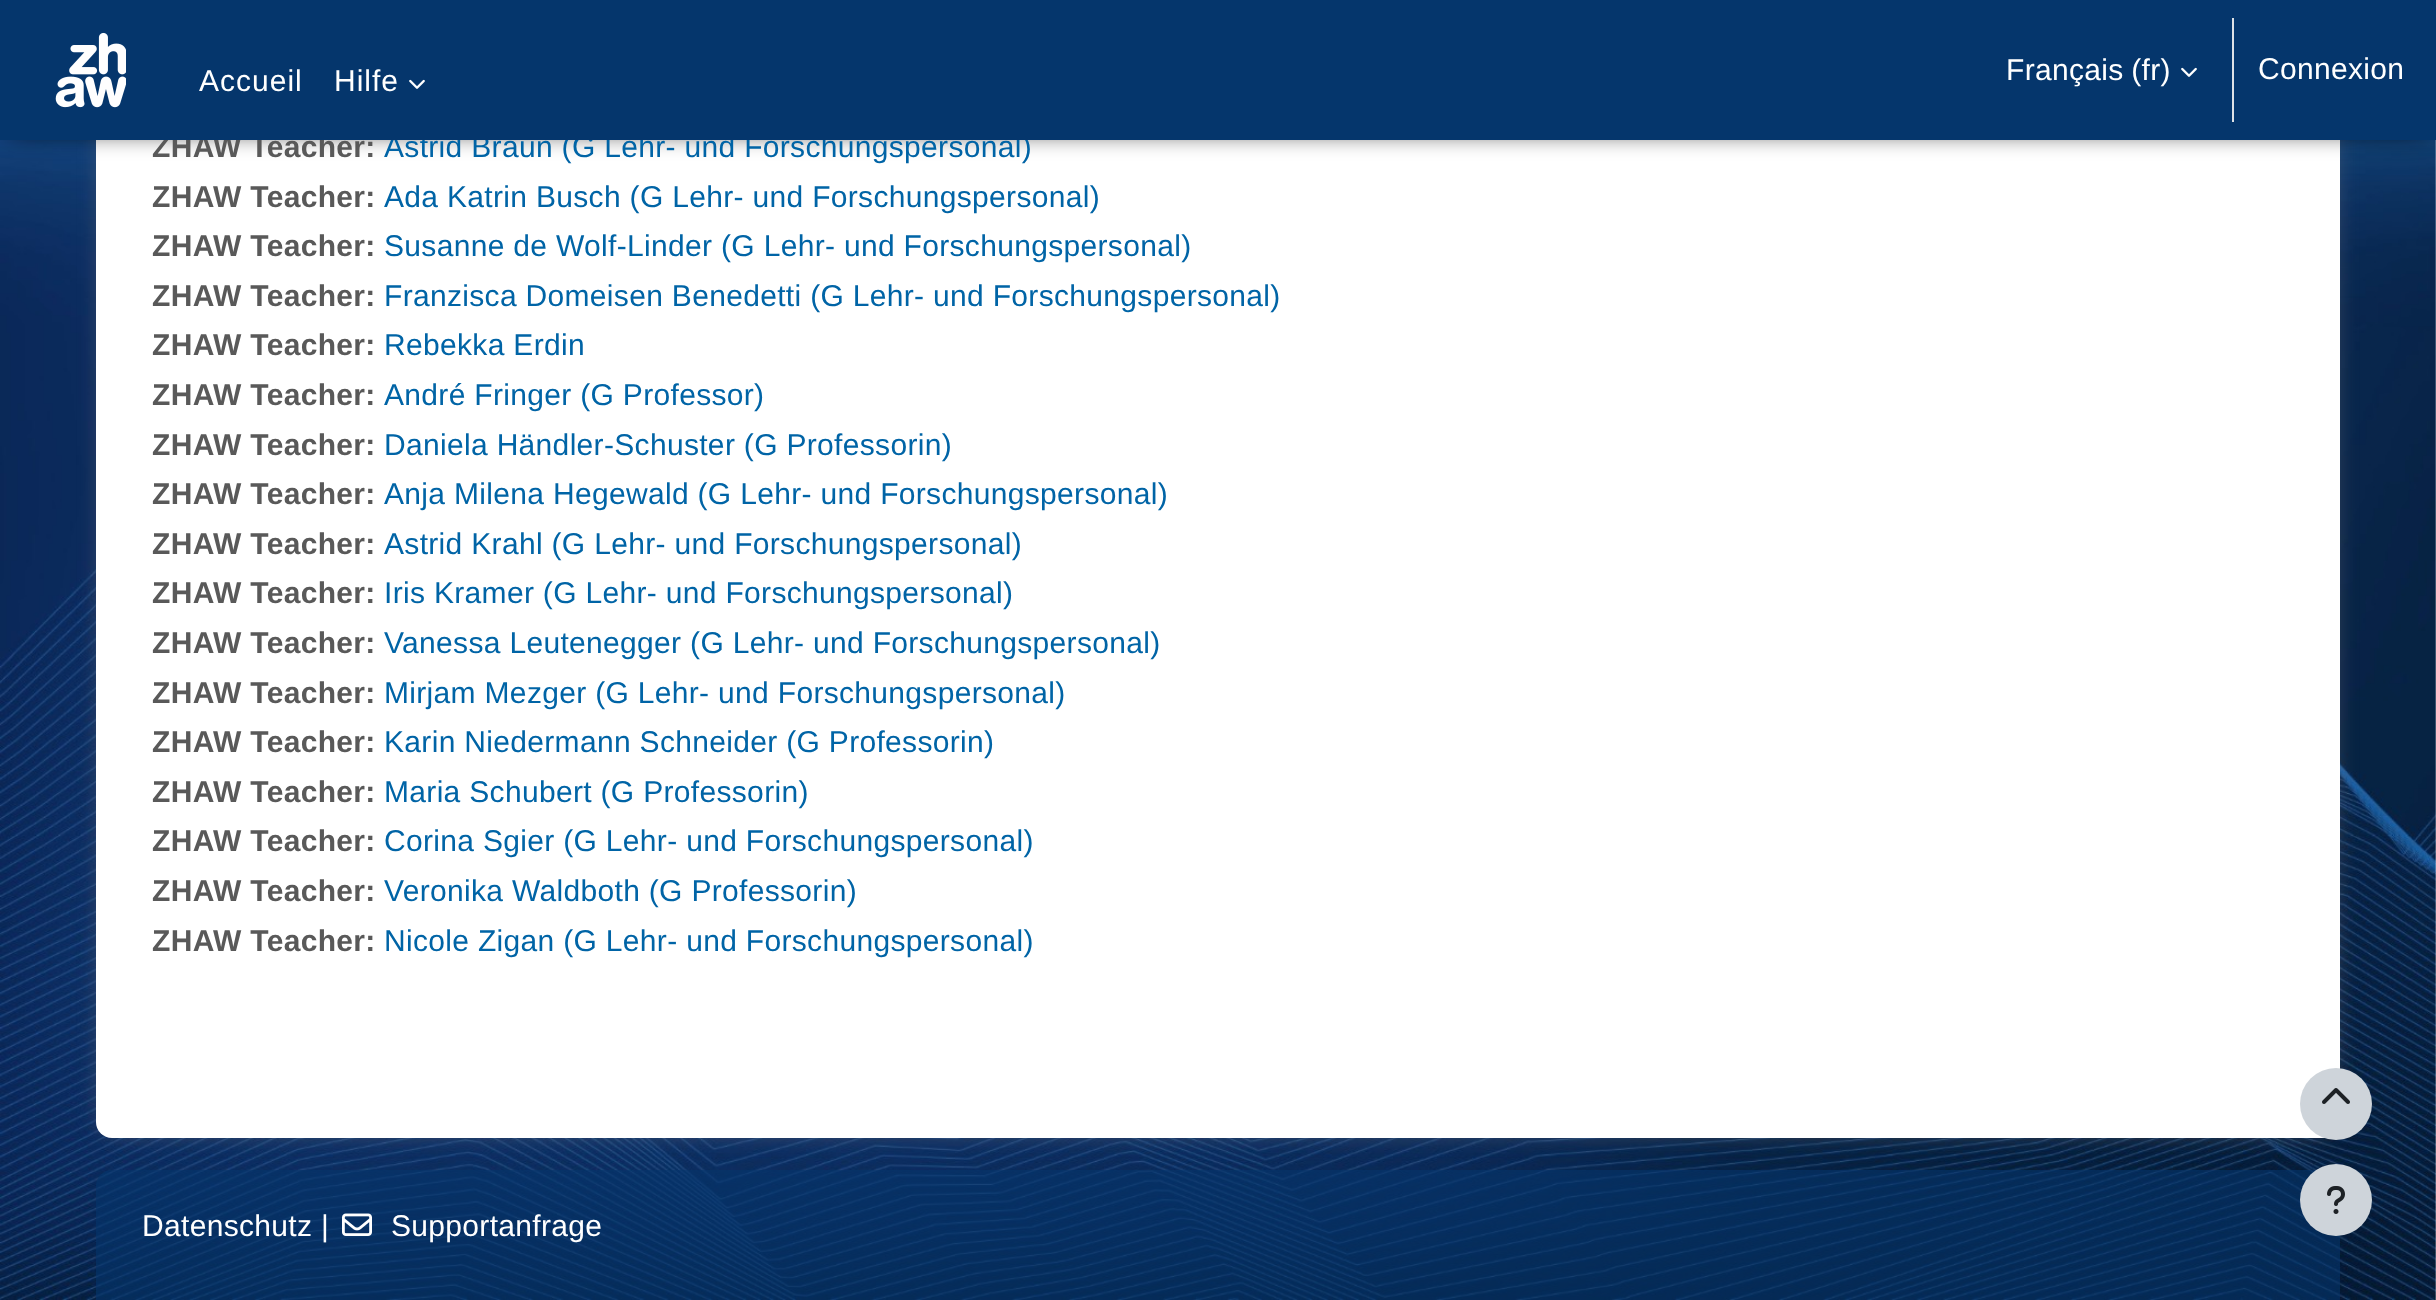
(async () => {
    const canvas = document.querySelector("canvas");
    canvas.width = 2436;
    canvas.height = 1300;
    const context = canvas.getContext("2d");
    context.miterLimit = 4;
    context.fontKerning = "normal";
    function write(s, x, y, font, color) {
        context.font = font;
        context.fillStyle = color;
        context.fillText(s, x, y);
    }
    function block(x, y, w, h, color) {
        context.fillStyle = color;
        context.fillRect(x, y, w, h);
    }
    function card(x, y, w, h, r, color) {
        context.fillStyle = color;
        context.beginPath();
        context.roundRect(x, y, w, h, r);
        context.fill();
    }
    async function photo(src, x, y, w, h) {
        const img = new Image();
        img.src = src;
        await img.decode();
        context.drawImage(img, x, y, w, h);
    }

    block(0, 0, 2436, 1300, "rgb(255, 255, 255)");
    await photo("media/1.png", 0, 140, 2436, 1160);
    context.fillStyle = "rgba(132, 124, 124, 0.72)";
    context.filter = "blur(13px)";
    context.beginPath();
    context.roundRect(106, -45, 2224, 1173, 6);
    context.fill();
    context.filter = "none";
    card(96, -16, 2244, 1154, 16, "rgb(255, 255, 255)");
    context.fillStyle = "rgb(0, 0, 0)";
    context.filter = "blur(13px)";
    context.beginPath();
    context.rect(10, 10, 2416, 120);
    context.fill();
    context.filter = "none";
    context.letterSpacing = "0.32px";
    write("ZHAW Teacher:", 152, 157, "bold 30px Liberation Sans", "rgb(89, 89, 89)");
    write("Astrid Braun (G Lehr- und Forschungspersonal)", 384, 157, "30px Liberation Sans", "rgb(0, 100, 166)");
    block(0, 0, 2436, 140, "rgb(5, 54, 108)");
    await photo("media/2.png", 55, 32, 71, 76);
    context.letterSpacing = "1px";
    write("Accueil", 199, 91, "30px Liberation Sans", "rgb(255, 255, 255)");
    write("Hilfe", 334, 91, "30px Liberation Sans", "rgb(255, 255, 255)");
    await photo("media/3.png", 409, 79, 16, 10);
    context.letterSpacing = "0.32px";
    context.wordSpacing = "-1px";
    write("Français (fr)", 2006, 80, "30px Liberation Sans", "rgb(255, 255, 255)");
    await photo("media/3.png", 2181, 67, 16, 10);
    block(2232, 18, 2, 104, "rgb(222, 226, 230)");
    context.wordSpacing = "0px";
    write("Connexion", 2258, 79, "30px Liberation Sans", "rgb(255, 255, 255)");
    write("ZHAW Teacher:", 152, 207, "bold 30px Liberation Sans", "rgb(89, 89, 89)");
    write("Ada Katrin Busch (G Lehr- und Forschungspersonal)", 384, 207, "30px Liberation Sans", "rgb(0, 100, 166)");
    write("ZHAW Teacher:", 152, 256, "bold 30px Liberation Sans", "rgb(89, 89, 89)");
    write("Susanne de Wolf-Linder (G Lehr- und Forschungspersonal)", 384, 256, "30px Liberation Sans", "rgb(0, 100, 166)");
    write("ZHAW Teacher:", 152, 306, "bold 30px Liberation Sans", "rgb(89, 89, 89)");
    write("Franzisca Domeisen Benedetti (G Lehr- und Forschungspersonal)", 384, 306, "30px Liberation Sans", "rgb(0, 100, 166)");
    write("ZHAW Teacher:", 152, 355, "bold 30px Liberation Sans", "rgb(89, 89, 89)");
    write("Rebekka Erdin", 384, 355, "30px Liberation Sans", "rgb(0, 100, 166)");
    write("ZHAW Teacher:", 152, 405, "bold 30px Liberation Sans", "rgb(89, 89, 89)");
    write("André Fringer (G Professor)", 384, 405, "30px Liberation Sans", "rgb(0, 100, 166)");
    write("ZHAW Teacher:", 152, 455, "bold 30px Liberation Sans", "rgb(89, 89, 89)");
    write("Daniela Händler-Schuster (G Professorin)", 384, 455, "30px Liberation Sans", "rgb(0, 100, 166)");
    write("ZHAW Teacher:", 152, 504, "bold 30px Liberation Sans", "rgb(89, 89, 89)");
    write("Anja Milena Hegewald (G Lehr- und Forschungspersonal)", 384, 504, "30px Liberation Sans", "rgb(0, 100, 166)");
    write("ZHAW Teacher:", 152, 554, "bold 30px Liberation Sans", "rgb(89, 89, 89)");
    write("Astrid Krahl (G Lehr- und Forschungspersonal)", 384, 554, "30px Liberation Sans", "rgb(0, 100, 166)");
    write("ZHAW Teacher:", 152, 603, "bold 30px Liberation Sans", "rgb(89, 89, 89)");
    write("Iris Kramer (G Lehr- und Forschungspersonal)", 384, 603, "30px Liberation Sans", "rgb(0, 100, 166)");
    write("ZHAW Teacher:", 152, 653, "bold 30px Liberation Sans", "rgb(89, 89, 89)");
    write("Vanessa Leutenegger (G Lehr- und Forschungspersonal)", 384, 653, "30px Liberation Sans", "rgb(0, 100, 166)");
    write("ZHAW Teacher:", 152, 703, "bold 30px Liberation Sans", "rgb(89, 89, 89)");
    write("Mirjam Mezger (G Lehr- und Forschungspersonal)", 384, 703, "30px Liberation Sans", "rgb(0, 100, 166)");
    write("ZHAW Teacher:", 152, 752, "bold 30px Liberation Sans", "rgb(89, 89, 89)");
    write("Karin Niedermann Schneider (G Professorin)", 384, 752, "30px Liberation Sans", "rgb(0, 100, 166)");
    write("ZHAW Teacher:", 152, 802, "bold 30px Liberation Sans", "rgb(89, 89, 89)");
    write("Maria Schubert (G Professorin)", 384, 802, "30px Liberation Sans", "rgb(0, 100, 166)");
    write("ZHAW Teacher:", 152, 851, "bold 30px Liberation Sans", "rgb(89, 89, 89)");
    write("Corina Sgier (G Lehr- und Forschungspersonal)", 384, 851, "30px Liberation Sans", "rgb(0, 100, 166)");
    write("ZHAW Teacher:", 152, 901, "bold 30px Liberation Sans", "rgb(89, 89, 89)");
    write("Veronika Waldboth (G Professorin)", 384, 901, "30px Liberation Sans", "rgb(0, 100, 166)");
    write("ZHAW Teacher:", 152, 951, "bold 30px Liberation Sans", "rgb(89, 89, 89)");
    write("Nicole Zigan (G Lehr- und Forschungspersonal)", 384, 951, "30px Liberation Sans", "rgb(0, 100, 166)");
    card(96, 1170, 2244, 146, 16, "rgba(5, 54, 108, 0.6)");
    write("Datenschutz |", 142, 1236, "30px Liberation Sans", "rgb(255, 255, 255)");
    await photo("media/4.png", 342, 1213, 30, 23);
    write("Supportanfrage", 391, 1236, "30px Liberation Sans", "rgb(255, 255, 255)");
    context.fillStyle = "rgb(206, 212, 218)";
    context.beginPath();
    context.arc(2336, 1104, 36, 0, Math.PI * 2);
    context.fill();
    await photo("media/5.png", 2322, 1088, 28, 16);
    context.beginPath();
    context.arc(2336, 1200, 36, 0, Math.PI * 2);
    context.fill();
    await photo("media/6.png", 2327, 1186, 18, 28);
})();
